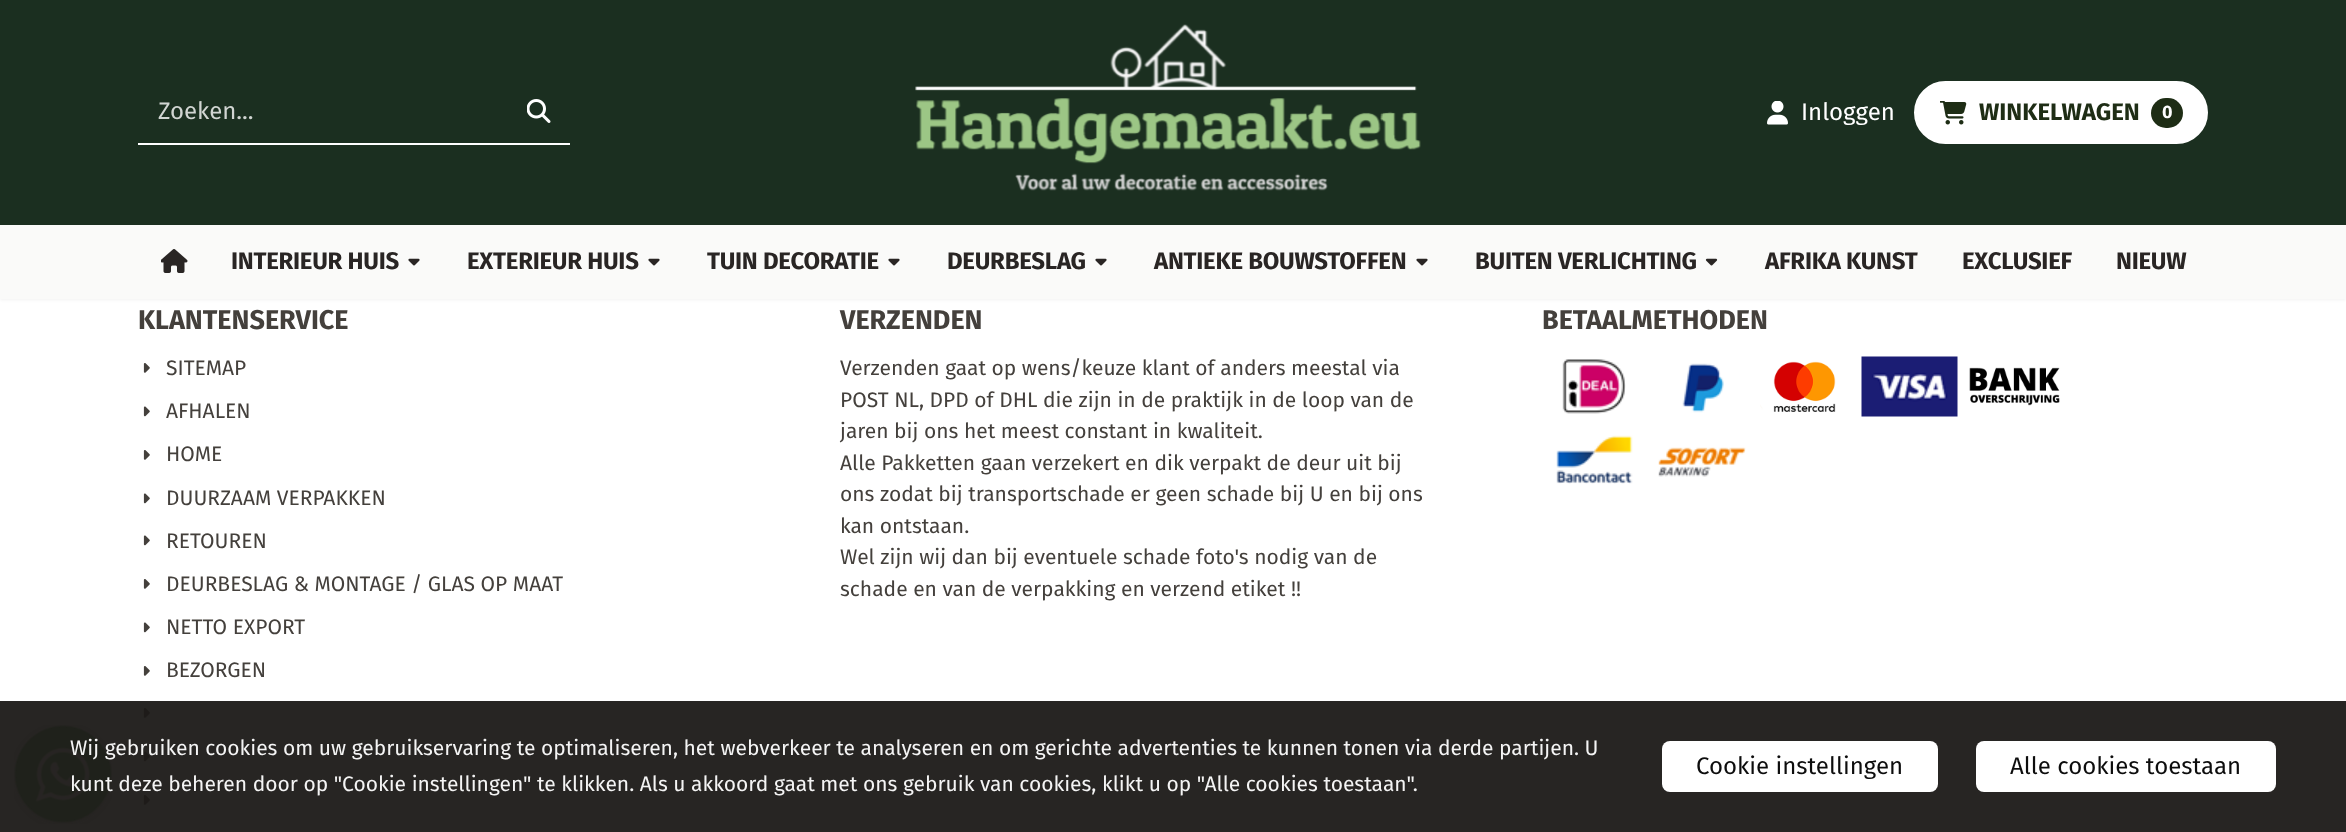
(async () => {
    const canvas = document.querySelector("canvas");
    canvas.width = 2346;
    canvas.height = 832;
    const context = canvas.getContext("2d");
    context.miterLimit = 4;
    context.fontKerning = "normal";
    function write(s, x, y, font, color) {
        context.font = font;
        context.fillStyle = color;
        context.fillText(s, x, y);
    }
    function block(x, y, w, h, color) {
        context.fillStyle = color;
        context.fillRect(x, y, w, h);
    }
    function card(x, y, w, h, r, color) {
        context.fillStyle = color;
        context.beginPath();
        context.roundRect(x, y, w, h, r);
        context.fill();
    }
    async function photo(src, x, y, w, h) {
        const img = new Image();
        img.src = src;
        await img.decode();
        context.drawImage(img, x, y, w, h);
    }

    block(0, 0, 2346, 832, "rgb(255, 255, 255)");
    context.fillStyle = "rgba(0, 0, 0, 0.05)";
    context.filter = "blur(1.5px)";
    context.beginPath();
    context.rect(0, 225, 2346, 75);
    context.fill();
    context.filter = "none";
    block(0, 0, 2346, 225, "rgb(27, 47, 32)");
    block(138, 143, 432, 2, "rgb(255, 255, 255)");
    write("Zoeken...", 158, 119, "24px Fira Sans", "rgb(209, 213, 210)");
    await photo("media/1.png", 527, 99, 24, 24);
    await photo("media/2.png", 915, 24, 506, 167);
    await photo("media/3.png", 1767, 101, 21, 24);
    write("Inloggen", 1801, 120, "24px Fira Sans", "rgb(255, 255, 255)");
    context.beginPath();
    context.roundRect(1915, 82, 292, 61, 30.5);
    context.fill();
    context.strokeStyle = "rgb(255, 255, 255)";
    context.lineWidth = 2;
    context.stroke();
    await photo("media/4.png", 1940, 101, 27, 24);
    write("WINKELWAGEN", 1979, 120, "bold 24px Fira Sans", "rgb(30, 45, 21)");
    card(2151, 98, 32, 30, 15, "rgb(30, 45, 21)");
    write("0", 2162, 118, "bold 18px Fira Sans", "rgb(255, 255, 255)");
    block(0, 225, 2346, 74, "rgb(250, 250, 249)");
    await photo("media/5.png", 161, 249, 27, 24);
    context.letterSpacing = "-0.25px";
    write("INTERIEUR HUIS", 231, 269, "bold 24px Fira Sans", "rgb(41, 37, 36)");
    await photo("media/6.png", 408, 258, 12, 8);
    write("EXTERIEUR HUIS", 467, 269, "bold 24px Fira Sans", "rgb(41, 37, 36)");
    await photo("media/6.png", 648, 258, 12, 8);
    write("TUIN DECORATIE", 707, 269, "bold 24px Fira Sans", "rgb(41, 37, 36)");
    await photo("media/6.png", 888, 258, 12, 8);
    write("DEURBESLAG", 947, 269, "bold 24px Fira Sans", "rgb(41, 37, 36)");
    await photo("media/6.png", 1095, 258, 12, 8);
    write("ANTIEKE BOUWSTOFFEN", 1154, 269, "bold 24px Fira Sans", "rgb(41, 37, 36)");
    await photo("media/6.png", 1416, 258, 12, 8);
    write("BUITEN VERLICHTING", 1475, 269, "bold 24px Fira Sans", "rgb(41, 37, 36)");
    await photo("media/7.png", 1705, 258, 13, 8);
    write("AFRIKA KUNST", 1765, 269, "bold 24px Fira Sans", "rgb(41, 37, 36)");
    write("EXCLUSIEF", 1962, 269, "bold 24px Fira Sans", "rgb(41, 37, 36)");
    write("NIEUW", 2116, 269, "bold 24px Fira Sans", "rgb(41, 37, 36)");
    block(0, 701, 2346, 131, "rgb(39, 37, 35)");
    context.letterSpacing = "0px";
    write("KLANTENSERVICE", 138, 329, "bold 27px Fira Sans", "rgb(68, 64, 60)");
    await photo("media/8.png", 143, 363, 7, 10);
    write("SITEMAP", 166, 375, "21px Fira Sans", "rgb(68, 64, 60)");
    await photo("media/9.png", 143, 406, 7, 11);
    write("AFHALEN", 166, 418, "21px Fira Sans", "rgb(68, 64, 60)");
    await photo("media/8.png", 143, 450, 7, 10);
    write("HOME", 166, 461, "21px Fira Sans", "rgb(68, 64, 60)");
    await photo("media/9.png", 143, 493, 7, 11);
    write("DUURZAAM VERPAKKEN", 166, 505, "21px Fira Sans", "rgb(68, 64, 60)");
    await photo("media/9.png", 143, 535, 7, 11);
    write("RETOUREN", 166, 548, "21px Fira Sans", "rgb(68, 64, 60)");
    await photo("media/8.png", 143, 579, 7, 10);
    write("DEURBESLAG & MONTAGE / GLAS OP MAAT", 166, 591, "21px Fira Sans", "rgb(68, 64, 60)");
    await photo("media/9.png", 143, 622, 7, 11);
    write("NETTO EXPORT", 166, 634, "21px Fira Sans", "rgb(68, 64, 60)");
    await photo("media/8.png", 143, 666, 7, 10);
    write("BEZORGEN", 166, 677, "21px Fira Sans", "rgb(68, 64, 60)");
    await photo("media/10.png", 143, 708, 7, 10);
    await photo("media/11.png", 143, 751, 7, 11);
    await photo("media/10.png", 143, 795, 7, 10);
    write("VERZENDEN", 840, 329, "bold 27px Fira Sans", "rgb(68, 64, 60)");
    write("Verzenden gaat op wens/keuze klant of anders meestal via", 840, 375, "21px Fira Sans", "rgb(68, 64, 60)");
    write("POST NL, DPD of DHL die zijn in de praktijk in de loop van de", 840, 407, "21px Fira Sans", "rgb(68, 64, 60)");
    write("jaren bij ons het meest constant in kwaliteit.", 840, 438, "21px Fira Sans", "rgb(68, 64, 60)");
    write("Alle Pakketten gaan verzekert en dik verpakt de deur uit bij", 840, 470, "21px Fira Sans", "rgb(68, 64, 60)");
    write("ons zodat bij transportschade er geen schade bij U en bij ons", 840, 501, "21px Fira Sans", "rgb(68, 64, 60)");
    write("kan ontstaan.", 840, 533, "21px Fira Sans", "rgb(68, 64, 60)");
    write("Wel zijn wij dan bij eventuele schade foto's nodig van de", 840, 564, "21px Fira Sans", "rgb(68, 64, 60)");
    write("schade en van de verpakking en verzend etiket !!", 840, 596, "21px Fira Sans", "rgb(68, 64, 60)");
    write("BETAALMETHODEN", 1542, 329, "bold 27px Fira Sans", "rgb(68, 64, 60)");
    await photo("media/12.png", 1562, 359, 64, 55);
    await photo("media/13.png", 1682, 363, 42, 50);
    await photo("media/14.png", 1760, 361, 76, 51);
    await photo("media/15.png", 1861, 356, 97, 61);
    await photo("media/16.png", 1969, 367, 91, 39);
    await photo("media/17.png", 1556, 435, 77, 49);
    await photo("media/18.png", 1658, 447, 88, 30);
    await photo("media/19.png", 14, 725, 98, 99);
    write("Wij gebruiken cookies om uw gebruikservaring te optimaliseren, het webverkeer te analyseren en om gerichte advertenties te kunnen tonen via derde partijen. U", 70, 755, "21px Fira Sans", "rgb(244, 244, 244)");
    write("kunt deze beheren door op \"Cookie instellingen\" te klikken. Als u akkoord gaat met ons gebruik van cookies, klikt u op \"Alle cookies toestaan\".", 70, 791, "21px Fira Sans", "rgb(244, 244, 244)");
    card(1662, 741, 276, 51, 8, "rgb(255, 255, 255)");
    write("Cookie instellingen", 1696, 774, "24px Fira Sans", "rgb(13, 13, 13)");
    card(1976, 741, 300, 51, 8, "rgb(255, 255, 255)");
    write("Alle cookies toestaan", 2010, 774, "24px Fira Sans", "rgb(13, 13, 13)");
})();
